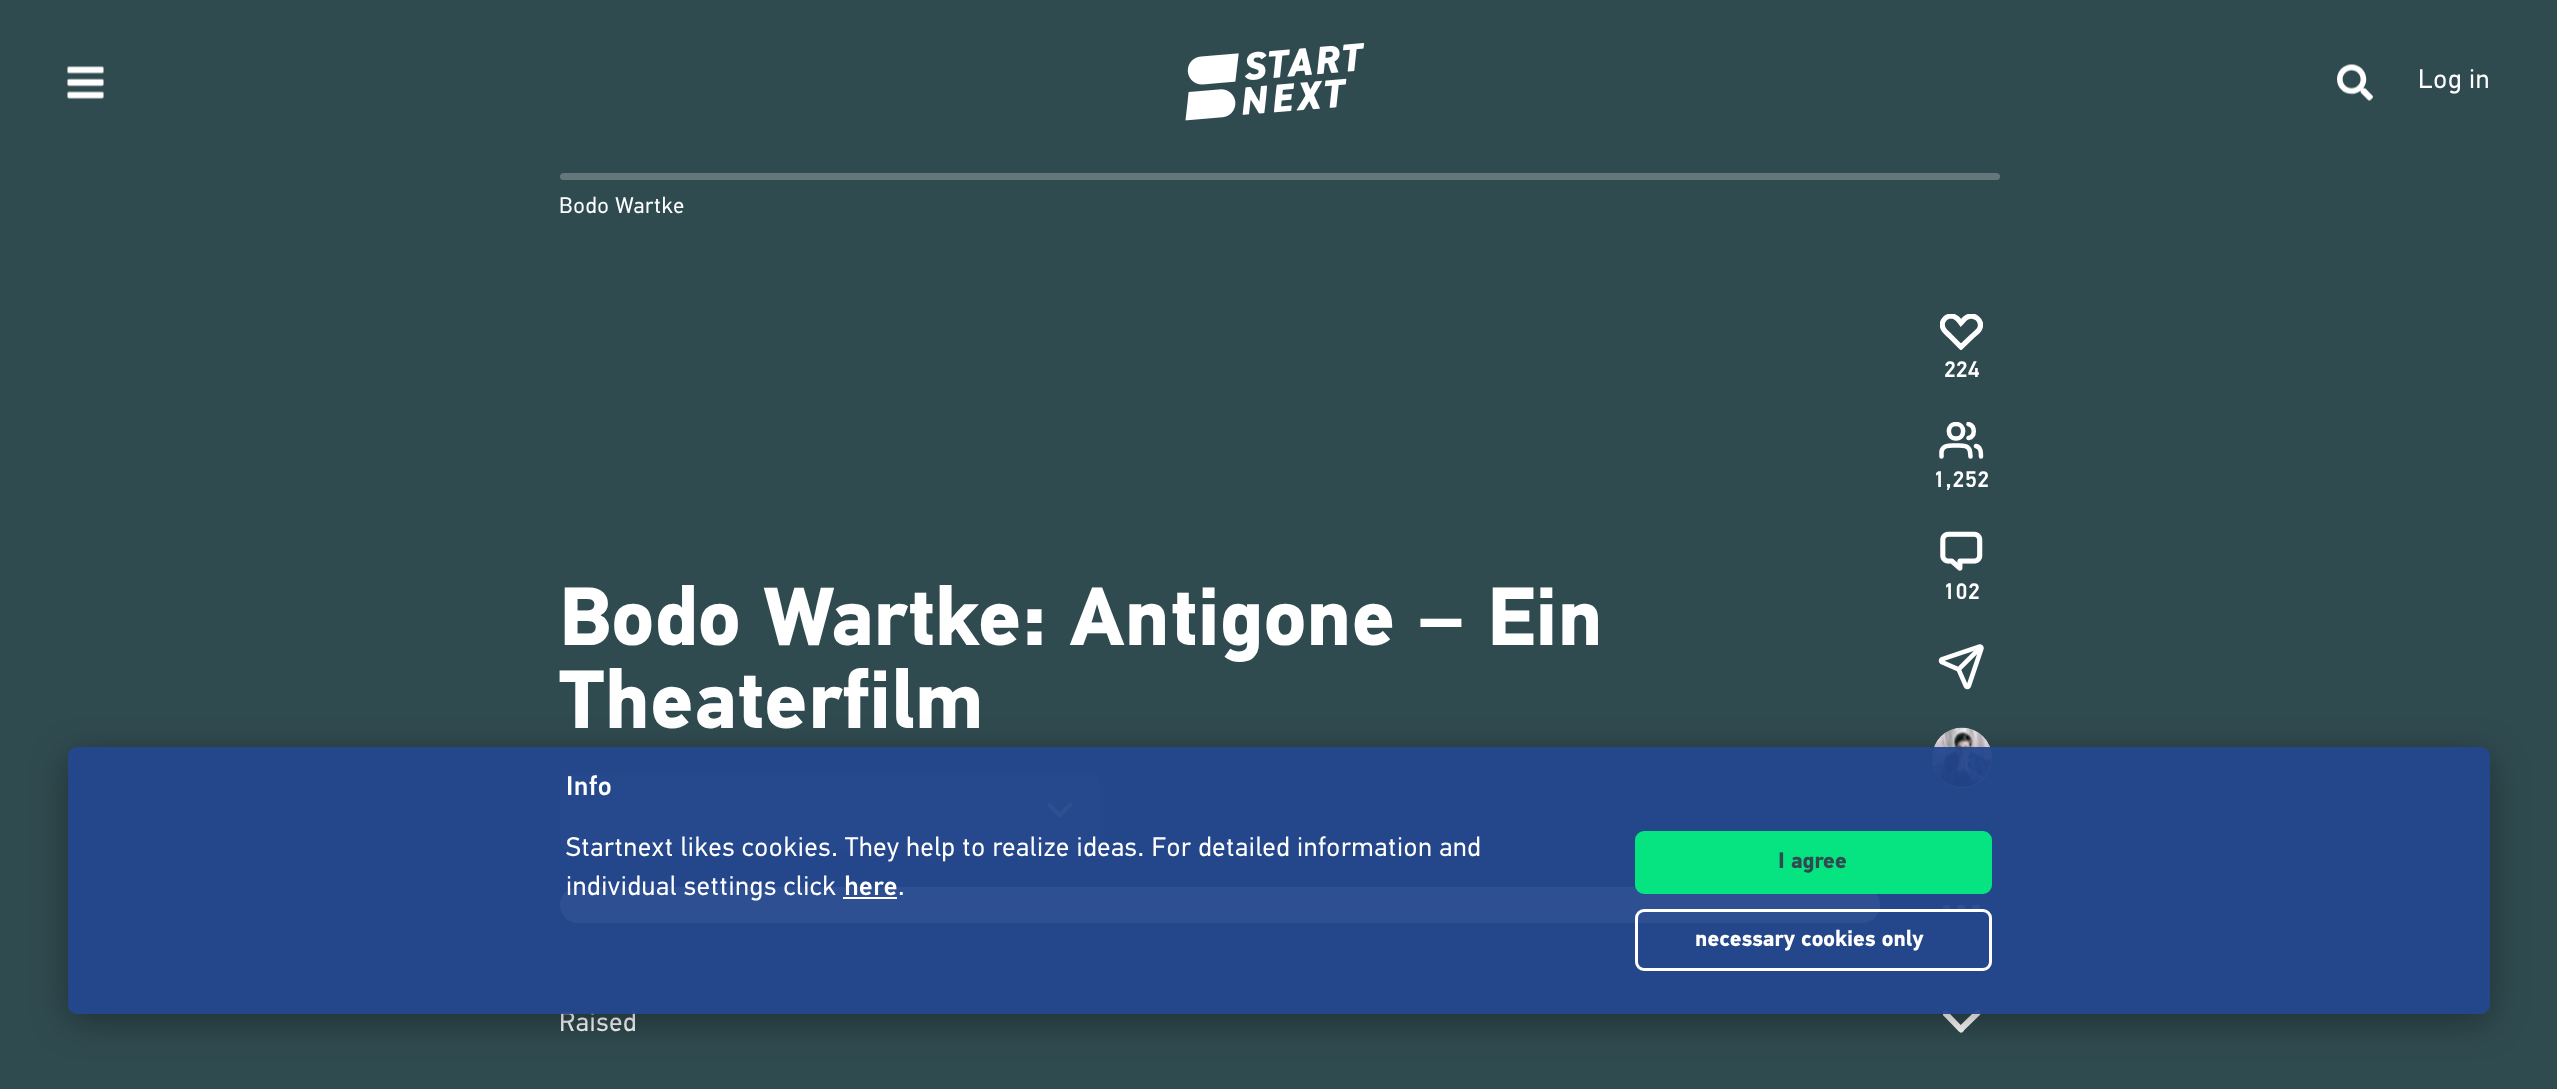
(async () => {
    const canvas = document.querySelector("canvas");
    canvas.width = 2557;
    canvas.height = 1089;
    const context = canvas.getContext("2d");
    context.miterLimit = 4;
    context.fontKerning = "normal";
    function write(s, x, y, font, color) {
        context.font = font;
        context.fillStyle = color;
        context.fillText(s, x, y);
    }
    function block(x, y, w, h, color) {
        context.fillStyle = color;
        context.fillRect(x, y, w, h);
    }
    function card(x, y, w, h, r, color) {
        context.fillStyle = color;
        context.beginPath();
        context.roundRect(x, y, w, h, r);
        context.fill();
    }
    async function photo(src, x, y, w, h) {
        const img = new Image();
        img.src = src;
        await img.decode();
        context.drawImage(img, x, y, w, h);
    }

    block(0, 0, 2557, 1089, "rgb(48, 75, 80)");
    await photo("media/1.png", 67, 66, 37, 33);
    await photo("media/2.png", 1185, 43, 180, 78);
    await photo("media/3.png", 2337, 64, 36, 37);
    context.letterSpacing = "0.68px";
    write("Log in", 2418, 88, "27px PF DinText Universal", "rgb(255, 255, 255)");
    card(560, 173, 1440, 7, 3.5, "rgb(100, 120, 124)");
    write("Bodo Wartke", 559, 213, "22.5px PF DinText Universal", "rgb(255, 255, 255)");
    context.save();
    context.beginPath();
    context.rect(1940, 314, 43, 36);
    context.clip();
    context.beginPath();
    context.moveTo(1945.5, 318);
    context.bezierCurveTo(1947.5, 316.5, 1950, 316, 1952.5, 316);
    context.bezierCurveTo(1956.5, 317, 1959, 320, 1961, 323);
    context.bezierCurveTo(1963, 321, 1964, 319, 1966.5, 317.5);
    context.bezierCurveTo(1974, 313, 1983.5, 320.5, 1979.5, 329);
    context.bezierCurveTo(1978, 332, 1974.5, 334, 1972, 336.5);
    context.lineTo(1961, 347);
    context.lineTo(1950.5, 336.5);
    context.bezierCurveTo(1946.5, 332.5, 1941, 329, 1942.5, 322.5);
    context.bezierCurveTo(1943, 321, 1944, 319.5, 1945.5, 318);
    context.closePath();
    context.strokeStyle = "rgb(255, 255, 255)";
    context.lineWidth = 5.2;
    context.stroke();
    context.restore();
    context.letterSpacing = "0px";
    write("224", 1944, 377, "500 22.5px PF DinText Universal", "rgb(255, 255, 255)");
    context.save();
    context.beginPath();
    context.rect(1938, 422, 47, 37);
    context.clip();
    context.beginPath();
    context.moveTo(1970.5, 456.5);
    context.lineTo(1970, 451.5);
    context.bezierCurveTo(1969, 444.5, 1961, 445.5, 1956, 445.5);
    context.bezierCurveTo(1950.5, 445.5, 1943, 444.5, 1941.5, 451.5);
    context.lineTo(1941.5, 456.5);
    context.moveTo(1956, 438.5);
    context.bezierCurveTo(1965.5, 438.5, 1965.5, 424, 1956, 424);
    context.bezierCurveTo(1946.5, 424, 1946.5, 438.5, 1956, 438.5);
    context.closePath();
    context.moveTo(1981, 456.5);
    context.bezierCurveTo(1981, 452, 1981, 447.5, 1976, 446);
    context.moveTo(1968.5, 424);
    context.bezierCurveTo(1975.5, 426, 1975.5, 436.5, 1968.5, 438);
    context.strokeStyle = "rgb(255, 255, 255)";
    context.lineWidth = 4.5;
    context.lineCap = "round";
    context.lineJoin = "round";
    context.stroke();
    context.restore();
    context.letterSpacing = "0.68px";
    write("1,252", 1933, 487, "500 22.5px PF DinText Universal", "rgb(255, 255, 255)");
    await photo("media/4.png", 1940, 531, 43, 40);
    write("102", 1943, 599, "500 22.5px PF DinText Universal", "rgb(255, 255, 255)");
    await photo("media/5.png", 1938, 644, 46, 46);
    context.fillStyle = "rgb(245, 245, 245)";
    context.beginPath();
    context.arc(1962, 758, 30, 0, Math.PI * 2);
    context.fill();
    await photo("media/6.png", 1932, 727, 60, 61);
    context.save();
    context.beginPath();
    context.rect(1943, 905, 37, 7);
    context.clip();
    context.fillStyle = "rgb(255, 255, 255)";
    context.beginPath();
    context.arc(1946, 908, 4, 0, Math.PI * 2);
    context.fill();
    context.beginPath();
    context.arc(1961, 908, 4, 0, Math.PI * 2);
    context.fill();
    context.beginPath();
    context.arc(1976, 908, 4, 0, Math.PI * 2);
    context.fill();
    context.restore();
    context.beginPath();
    context.moveTo(1961.5, 1028.5);
    context.lineTo(1977.5, 1013);
    context.strokeStyle = "rgb(255, 255, 255)";
    context.lineWidth = 6;
    context.lineCap = "round";
    context.stroke();
    context.save();
    context.beginPath();
    context.rect(1943, 1010, 39, 24);
    context.clip();
    context.beginPath();
    context.moveTo(1961, 1029.5);
    context.lineTo(1945.5, 1013.5);
    context.stroke();
    context.restore();
    context.letterSpacing = "0px";
    write("Bodo Wartke: Antigone", 559, 645, "bold 82.5px PF DinText Universal", "rgb(255, 255, 255)");
    write("–", 1418, 645, "bold 82.5px Liberation Sans", "rgb(255, 255, 255)");
    write("Ein", 1487, 645, "bold 82.5px PF DinText Universal", "rgb(255, 255, 255)");
    write("Theaterfilm", 559, 728, "bold 82.5px PF DinText Universal", "rgb(255, 255, 255)");
    card(560, 773, 540, 78, 12, "rgb(89, 111, 115)");
    context.save();
    context.beginPath();
    context.rect(1047, 803, 26, 16);
    context.clip();
    context.beginPath();
    context.moveTo(1060, 815);
    context.lineTo(1070.5, 804.5);
    context.lineWidth = 4;
    context.stroke();
    context.restore();
    context.beginPath();
    context.moveTo(1059.5, 815.5);
    context.lineTo(1049.5, 805);
    context.lineWidth = 4;
    context.stroke();
    card(560, 887, 1320, 36, 18, "rgb(255, 255, 255)");
    context.letterSpacing = "0.68px";
    write("Raised", 559, 1031, "27px PF DinText Universal", "rgb(255, 255, 255)");
    context.save();
    context.beginPath();
    context.moveTo(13, 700);
    context.lineTo(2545, 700);
    context.lineTo(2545, 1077);
    context.lineTo(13, 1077);
    context.closePath();
    context.moveTo(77, 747);
    context.lineTo(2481, 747);
    context.bezierCurveTo(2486, 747, 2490, 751, 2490, 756);
    context.lineTo(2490, 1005);
    context.bezierCurveTo(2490, 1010, 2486, 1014, 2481, 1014);
    context.lineTo(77, 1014);
    context.bezierCurveTo(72, 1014, 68, 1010, 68, 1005);
    context.lineTo(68, 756);
    context.bezierCurveTo(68, 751, 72, 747, 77, 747);
    context.closePath();
    context.clip("evenodd");
    context.fillStyle = "rgba(0, 0, 0, 0.35)";
    context.filter = "blur(18px)";
    context.beginPath();
    context.roundRect(68, 755, 2422, 267, 9);
    context.fill();
    context.filter = "none";
    context.restore();
    card(68, 747, 2422, 267, 9, "rgba(36, 70, 141, 0.95)");
    write("Info", 566, 795, "500 27px PF DinText Universal", "rgb(255, 255, 255)");
    write("Startnext likes cookies. They help to realize ideas. For detailed information and", 566, 856, "27px PF DinText Universal", "rgb(255, 255, 255)");
    write("individual settings click", 566, 895, "27px PF DinText Universal", "rgb(255, 255, 255)");
    write("here", 844, 895, "500 27px PF DinText Universal", "rgb(255, 255, 255)");
    block(843, 897, 54, 2, "rgb(255, 255, 255)");
    write(".", 898, 895, "27px PF DinText Universal", "rgb(255, 255, 255)");
    context.fillStyle = "rgb(6, 228, 129)";
    context.beginPath();
    context.roundRect(1636.5, 832.5, 354, 60, 7.5);
    context.fill();
    context.strokeStyle = "rgb(6, 228, 129)";
    context.lineWidth = 3;
    context.stroke();
    context.letterSpacing = "0px";
    write("I agree", 1778, 868, "bold 22.5px PF DinText Universal", "rgb(48, 75, 80)");
    context.beginPath();
    context.roundRect(1636.5, 910.5, 354, 59, 7.5);
    context.strokeStyle = "rgb(255, 255, 255)";
    context.stroke();
    write("necessary cookies only", 1695, 946, "bold 22.5px PF DinText Universal", "rgb(255, 255, 255)");
})();
